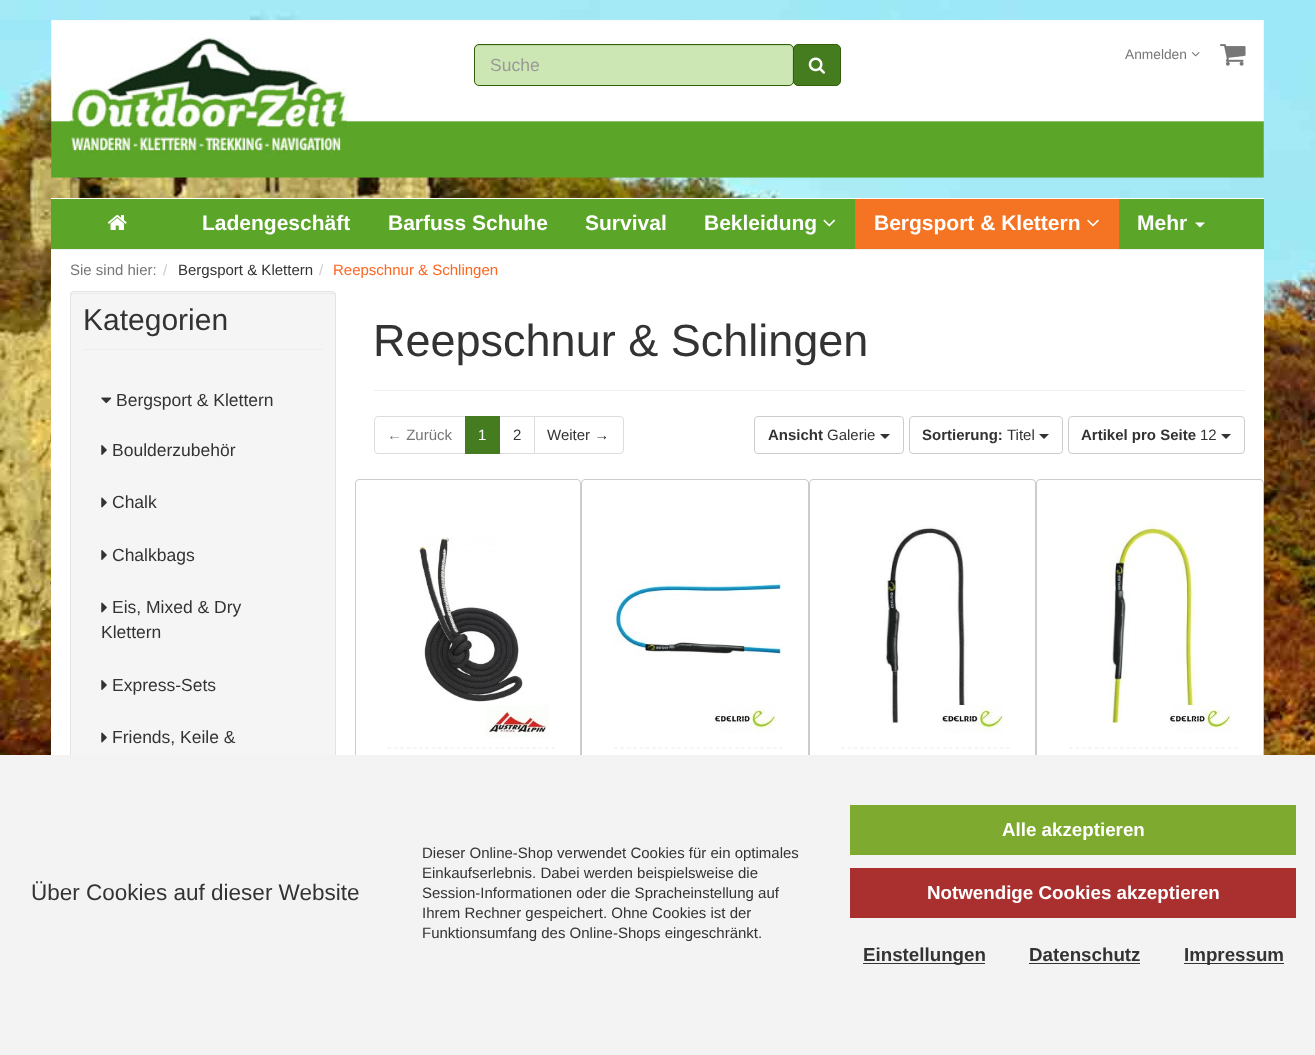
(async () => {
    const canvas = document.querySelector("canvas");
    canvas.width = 1315;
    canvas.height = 1055;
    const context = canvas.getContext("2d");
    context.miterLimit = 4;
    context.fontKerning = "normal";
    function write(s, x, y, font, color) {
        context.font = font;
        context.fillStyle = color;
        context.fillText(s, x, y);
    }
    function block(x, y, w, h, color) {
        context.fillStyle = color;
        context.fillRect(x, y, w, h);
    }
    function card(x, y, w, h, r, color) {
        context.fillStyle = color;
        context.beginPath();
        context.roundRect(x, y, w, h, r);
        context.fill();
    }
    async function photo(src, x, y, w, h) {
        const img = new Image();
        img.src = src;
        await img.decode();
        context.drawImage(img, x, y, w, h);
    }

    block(0, 0, 1315, 1055, "rgb(255, 255, 255)");
    await photo("media/1.png", 0, 0, 1315, 755);
    await photo("media/2.png", 51, 19, 1213, 159);
    await photo("media/3.png", 70, 37, 278, 117);
    write("Anmelden", 1125, 59, "13.75px Liberation Sans", "rgb(119, 119, 119)");
    await photo("media/4.png", 1191, 52, 9, 5);
    await photo("media/5.png", 1220, 44, 26, 22);
    card(474, 44, 320, 42, 5, "rgb(204, 231, 179)");
    context.fillStyle = "rgb(189, 214, 166)";
    context.beginPath();
    context.moveTo(479, 46);
    context.lineTo(789, 46);
    context.bezierCurveTo(794, 46, 792, 59, 792, 61);
    context.lineTo(792, 84);
    context.lineTo(793, 82);
    context.lineTo(793, 48);
    context.bezierCurveTo(793, 47, 792, 46, 791, 45);
    context.lineTo(479, 45);
    context.bezierCurveTo(476, 45, 475, 47, 475, 50);
    context.bezierCurveTo(475, 48, 477, 46, 479, 46);
    context.closePath();
    context.fill();
    context.beginPath();
    context.roundRect(474.5, 44.5, 319, 41, 4.5);
    context.strokeStyle = "rgb(51, 95, 7)";
    context.stroke();
    write("Suche", 490, 71, "17.5px Liberation Sans", "rgb(153, 153, 153)");
    context.fillStyle = "rgb(68, 124, 31)";
    context.beginPath();
    context.roundRect(793.5, 44.5, 47, 41, 4.5);
    context.fill();
    context.stroke();
    await photo("media/6.png", 808, 57, 17, 17);
    block(51, 199, 1213, 50, "rgb(91, 165, 40)");
    block(51, 198, 1213, 1, "rgb(255, 255, 255)");
    block(51, 249, 1213, 1, "rgb(238, 238, 238)");
    await photo("media/7.png", 107, 215, 20, 15);
    write("Ladengeschäft", 202, 230, "bold 21px Liberation Sans", "rgb(255, 255, 255)");
    write("Barfuss Schuhe", 388, 230, "bold 21px Liberation Sans", "rgb(255, 255, 255)");
    write("Survival", 585, 230, "bold 21px Liberation Sans", "rgb(255, 255, 255)");
    write("Bekleidung", 704, 230, "bold 21px Liberation Sans", "rgb(255, 255, 255)");
    await photo("media/8.png", 823, 219, 13, 8);
    block(855, 199, 264, 50, "rgb(244, 116, 35)");
    write("Bergsport & Klettern", 874, 230, "bold 21px Liberation Sans", "rgb(255, 255, 255)");
    await photo("media/9.png", 1087, 219, 12, 8);
    write("Mehr", 1137, 230, "bold 21px Liberation Sans", "rgb(255, 255, 255)");
    context.beginPath();
    context.moveTo(1195, 222.5);
    context.lineTo(1205, 222.5);
    context.lineTo(1200, 227.5);
    context.closePath();
    context.fill();
    block(51, 250, 1213, 505, "rgb(255, 255, 255)");
    write("Sie sind hier:", 70, 275, "15px Liberation Sans", "rgb(119, 119, 119)");
    write("/", 163, 275, "15px Liberation Sans", "rgb(204, 204, 204)");
    write("Bergsport & Klettern", 178, 275, "15px Liberation Sans", "rgb(51, 51, 51)");
    write("/", 319, 275, "15px Liberation Sans", "rgb(204, 204, 204)");
    write("Reepschnur & Schlingen", 333, 275, "15px Liberation Sans", "rgb(252, 102, 33)");
    card(70, 291, 266, 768, 4, "rgb(245, 245, 245)");
    context.fillStyle = "rgb(233, 233, 233)";
    context.beginPath();
    context.moveTo(74, 294);
    context.lineTo(332, 294);
    context.bezierCurveTo(334, 294, 335, 295, 335, 296);
    context.bezierCurveTo(335, 294, 334, 293, 332, 293);
    context.lineTo(74, 293);
    context.lineTo(71, 294);
    context.lineTo(71, 296);
    context.bezierCurveTo(71, 295, 72, 294, 74, 294);
    context.closePath();
    context.fill();
    context.beginPath();
    context.roundRect(70.5, 291.5, 265, 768, 3.5);
    context.strokeStyle = "rgb(227, 227, 227)";
    context.stroke();
    block(83, 349, 241, 1, "rgb(238, 238, 238)");
    write("Kategorien", 83, 330, "30px Liberation Sans", "rgb(51, 51, 51)");
    await photo("media/10.png", 101, 397, 11, 7);
    write("Bergsport & Klettern", 116, 406, "17.5px Liberation Sans", "rgb(51, 51, 51)");
    await photo("media/11.png", 101, 445, 6, 10);
    write("Boulderzubehör", 112, 456, "17.5px Liberation Sans", "rgb(51, 51, 51)");
    await photo("media/12.png", 101, 497, 6, 11);
    write("Chalk", 112, 508, "17.5px Liberation Sans", "rgb(51, 51, 51)");
    await photo("media/11.png", 101, 550, 6, 10);
    write("Chalkbags", 112, 561, "17.5px Liberation Sans", "rgb(51, 51, 51)");
    await photo("media/12.png", 101, 602, 6, 11);
    write("Eis, Mixed & Dry", 112, 613, "17.5px Liberation Sans", "rgb(51, 51, 51)");
    write("Klettern", 101, 638, "17.5px Liberation Sans", "rgb(51, 51, 51)");
    await photo("media/11.png", 101, 680, 6, 10);
    write("Express-Sets", 112, 691, "17.5px Liberation Sans", "rgb(51, 51, 51)");
    await photo("media/12.png", 101, 732, 6, 11);
    write("Friends, Keile &", 112, 743, "17.5px Liberation Sans", "rgb(51, 51, 51)");
    block(374, 390, 871, 1, "rgb(238, 238, 238)");
    write("Reepschnur & Schlingen", 373, 356, "45px Liberation Sans", "rgb(51, 51, 51)");
    context.beginPath();
    context.roundRect(374.5, 416.5, 91, 37, [3.5, 0, 0, 3.5]);
    context.strokeStyle = "rgb(221, 221, 221)";
    context.stroke();
    write("← Zurück", 387, 440, "15px Liberation Sans", "rgb(119, 119, 119)");
    context.strokeRect(499.5, 416.5, 35, 37);
    block(465, 416, 35, 38, "rgb(68, 124, 31)");
    write("1", 478, 440, "15px Liberation Sans", "rgb(255, 255, 255)");
    write("2", 513, 440, "15px Liberation Sans", "rgb(51, 51, 51)");
    context.fillStyle = "rgb(255, 255, 255)";
    context.beginPath();
    context.roundRect(534.5, 416.5, 89, 37, [0, 3.5, 3.5, 0]);
    context.fill();
    context.stroke();
    write("Weiter →", 547, 440, "15px Liberation Sans", "rgb(51, 51, 51)");
    context.beginPath();
    context.roundRect(754.5, 416.5, 149, 37, 3.5);
    context.strokeStyle = "rgb(204, 204, 204)";
    context.stroke();
    write("Ansicht", 768, 440, "bold 15px Liberation Sans", "rgb(51, 51, 51)");
    write("Galerie", 827, 440, "15px Liberation Sans", "rgb(51, 51, 51)");
    context.beginPath();
    context.moveTo(880, 434);
    context.lineTo(890, 434);
    context.lineTo(885, 439);
    context.closePath();
    context.fill();
    context.beginPath();
    context.roundRect(909.5, 416.5, 153, 37, 3.5);
    context.stroke();
    write("Sortierung:", 922, 440, "bold 15px Liberation Sans", "rgb(51, 51, 51)");
    write("Titel", 1007, 440, "15px Liberation Sans", "rgb(51, 51, 51)");
    context.beginPath();
    context.moveTo(1039, 434);
    context.lineTo(1049, 434);
    context.lineTo(1044, 439);
    context.closePath();
    context.fill();
    context.beginPath();
    context.roundRect(1068.5, 416.5, 176, 37, 3.5);
    context.stroke();
    write("Artikel pro Seite", 1081, 440, "bold 15px Liberation Sans", "rgb(51, 51, 51)");
    write("12", 1200, 440, "15px Liberation Sans", "rgb(51, 51, 51)");
    context.beginPath();
    context.moveTo(1221, 434);
    context.lineTo(1231, 434);
    context.lineTo(1226, 439);
    context.closePath();
    context.fill();
    context.beginPath();
    context.roundRect(355.5, 479.5, 225, 480, 3.5);
    context.stroke();
    context.beginPath();
    context.moveTo(387.5, 748);
    context.lineTo(555, 748);
    context.strokeStyle = "rgb(238, 238, 238)";
    context.lineWidth = 1.2;
    context.setLineDash([3.75, 2.55]);
    context.stroke();
    await photo("media/13.png", 418, 537, 106, 165);
    await photo("media/14.png", 486, 705, 63, 33);
    context.beginPath();
    context.roundRect(581.5, 479.5, 227, 455, 3.5);
    context.strokeStyle = "rgb(204, 204, 204)";
    context.lineWidth = 1;
    context.setLineDash([]);
    context.stroke();
    context.beginPath();
    context.moveTo(614, 748);
    context.lineTo(782.5, 748);
    context.strokeStyle = "rgb(238, 238, 238)";
    context.lineWidth = 1.2;
    context.setLineDash([3.75, 2.6]);
    context.stroke();
    await photo("media/15.png", 614, 579, 169, 78);
    await photo("media/16.png", 714, 705, 62, 28);
    context.beginPath();
    context.roundRect(809.5, 479.5, 226, 455, 3.5);
    context.strokeStyle = "rgb(204, 204, 204)";
    context.lineWidth = 1;
    context.setLineDash([]);
    context.stroke();
    context.beginPath();
    context.moveTo(841, 748);
    context.lineTo(1010, 748);
    context.strokeStyle = "rgb(238, 238, 238)";
    context.lineWidth = 1.2;
    context.setLineDash([3.75, 2.6]);
    context.stroke();
    await photo("media/17.png", 884, 526, 84, 197);
    await photo("media/18.png", 941, 705, 63, 28);
    context.beginPath();
    context.roundRect(1036.5, 479.5, 227, 455, 3.5);
    context.strokeStyle = "rgb(204, 204, 204)";
    context.lineWidth = 1;
    context.setLineDash([]);
    context.stroke();
    context.beginPath();
    context.moveTo(1069, 748);
    context.lineTo(1237.5, 748);
    context.strokeStyle = "rgb(238, 238, 238)";
    context.lineWidth = 1.2;
    context.setLineDash([3.75, 2.6]);
    context.stroke();
    await photo("media/19.png", 1109, 520, 89, 203);
    await photo("media/16.png", 1169, 705, 62, 28);
    block(0, 755, 1315, 300, "rgb(243, 243, 243)");
    write("Über Cookies auf dieser Website", 31, 900, "22.5px Liberation Sans", "rgb(51, 51, 51)");
    write("Dieser Online-Shop verwendet Cookies für ein optimales", 422, 858, "15px Liberation Sans", "rgb(51, 51, 51)");
    write("Einkaufserlebnis. Dabei werden beispielsweise die", 422, 878, "15px Liberation Sans", "rgb(51, 51, 51)");
    write("Session-Informationen oder die Spracheinstellung auf", 422, 898, "15px Liberation Sans", "rgb(51, 51, 51)");
    write("Ihrem Rechner gespeichert. Ohne Cookies ist der", 422, 918, "15px Liberation Sans", "rgb(51, 51, 51)");
    write("Funktionsumfang des Online-Shops eingeschränkt.", 422, 938, "15px Liberation Sans", "rgb(51, 51, 51)");
    block(850, 805, 446, 50, "rgb(126, 170, 48)");
    write("Alle akzeptieren", 1002, 836, "bold 18.75px Liberation Sans", "rgb(255, 255, 255)");
    block(850, 868, 446, 50, "rgb(170, 48, 48)");
    write("Notwendige Cookies akzeptieren", 927, 899, "bold 18.75px Liberation Sans", "rgb(255, 255, 255)");
    block(863, 963, 122, 1, "rgb(51, 51, 51)");
    write("Einstellungen", 863, 961, "bold 18.75px Liberation Sans", "rgb(51, 51, 51)");
    write("Datenschutz", 1029, 961, "bold 18.75px Liberation Sans", "rgb(51, 51, 51)");
    block(1029, 963, 111, 1, "rgb(51, 51, 51)");
    block(1184, 963, 100, 1, "rgb(51, 51, 51)");
    write("Impressum", 1184, 961, "bold 18.75px Liberation Sans", "rgb(51, 51, 51)");
})();
